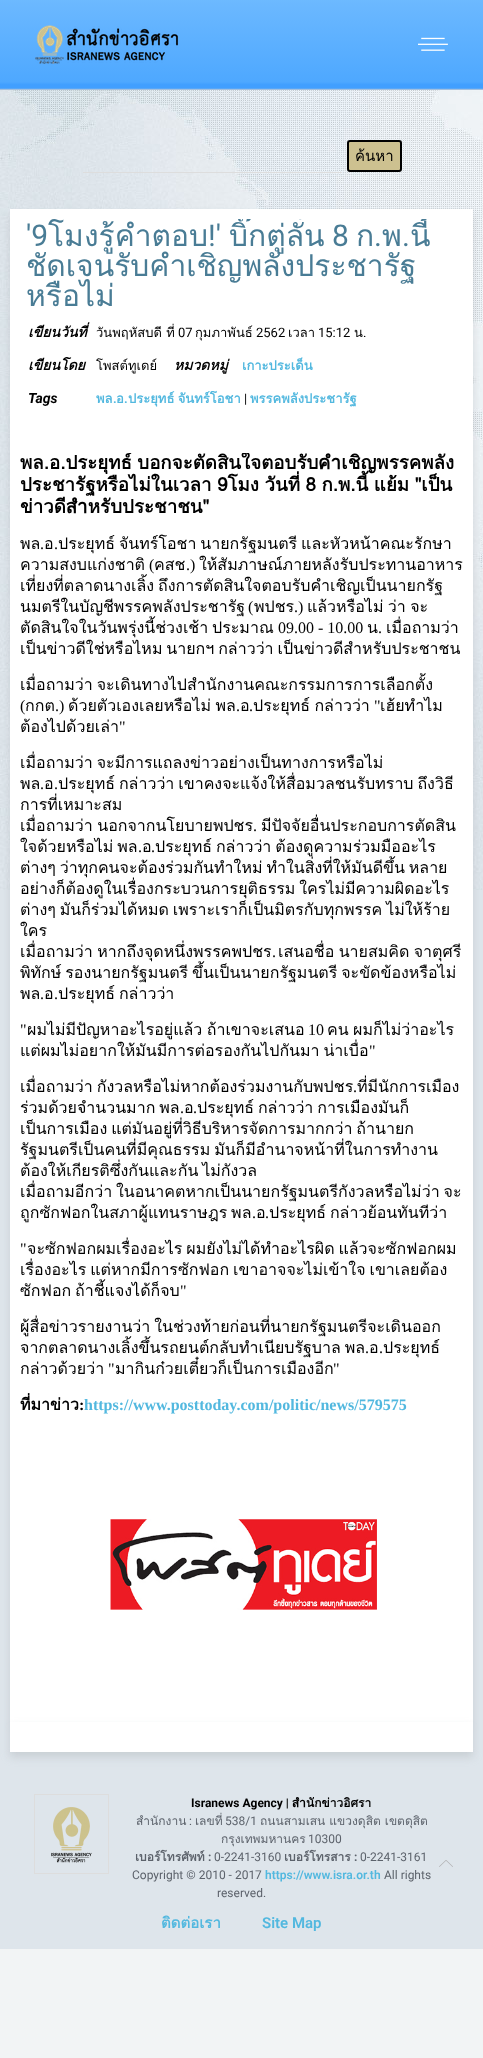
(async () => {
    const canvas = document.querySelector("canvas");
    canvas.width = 483;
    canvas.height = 2058;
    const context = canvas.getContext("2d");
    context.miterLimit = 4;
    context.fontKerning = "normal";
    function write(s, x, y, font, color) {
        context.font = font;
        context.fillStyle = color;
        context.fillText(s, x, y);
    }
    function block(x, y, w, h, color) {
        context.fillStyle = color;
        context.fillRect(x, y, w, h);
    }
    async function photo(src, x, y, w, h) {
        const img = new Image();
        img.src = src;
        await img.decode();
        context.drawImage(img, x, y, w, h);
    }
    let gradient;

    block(0, 0, 483, 2058, "rgb(242, 244, 245)");
    block(0, 890, 483, 1059, "rgb(222, 229, 235)");
    await photo("media/1.png", 0, 90, 483, 800);
    gradient = context.createLinearGradient(242, 0, 242, 90);
    gradient.addColorStop(0, "rgb(109, 186, 255)");
    gradient.addColorStop(0.04, "rgb(107, 184, 255)");
    gradient.addColorStop(0.91, "rgb(78, 168, 255)");
    gradient.addColorStop(0.94, "rgb(65, 159, 255)");
    gradient.addColorStop(0.98, "rgb(65, 159, 255)");
    gradient.addColorStop(1, "rgb(200, 205, 211)");
    context.fillStyle = gradient;
    context.fillRect(0, 0, 483, 90);
    await photo("media/2.png", 35, 25, 144, 39);
    await photo("media/3.png", 418, 37, 30, 14);
    context.fillStyle = "rgb(205, 193, 144)";
    context.beginPath();
    context.roundRect(348, 141, 53, 30, 2);
    context.fill();
    context.strokeStyle = "rgb(0, 0, 0)";
    context.lineWidth = 2;
    context.stroke();
    write("ค้นหา", 355, 161, "15px Loma", "rgb(0, 0, 0)");
    block(83, 172, 259, 1, "rgb(221, 221, 221)");
    context.fillStyle = "rgba(160, 166, 168, 0.35)";
    context.filter = "blur(4px)";
    context.beginPath();
    context.rect(10, 214, 463, 1513);
    context.fill();
    context.filter = "none";
    block(10, 209, 463, 1513, "rgb(255, 255, 255)");
    write("'9", 26, 246, "30px Roboto", "rgb(73, 124, 149)");
    write("โมงรู้คำตอบ", 48, 246, "30px Loma", "rgb(73, 124, 149)");
    write("!'", 208, 246, "30px Roboto", "rgb(73, 124, 149)");
    context.save();
    context.beginPath();
    context.rect(20, 219, 443, 1493);
    context.clip();
    write("บิ๊กตู่ลั่น", 229, 246, "30px Loma", "rgb(73, 124, 149)");
    context.restore();
    write("พ", 382, 246, "30px Loma", "rgb(73, 124, 149)");
    write(".", 402, 246, "30px Roboto", "rgb(73, 124, 149)");
    context.save();
    context.beginPath();
    context.rect(20, 219, 443, 1493);
    context.clip();
    write("นี้", 410, 246, "30px Loma", "rgb(73, 124, 149)");
    context.restore();
    write("8", 332, 246, "30px Roboto", "rgb(73, 124, 149)");
    write("ก", 356, 246, "30px Loma", "rgb(73, 124, 149)");
    write(".", 374, 246, "30px Roboto", "rgb(73, 124, 149)");
    context.save();
    context.beginPath();
    context.rect(20, 219, 443, 1493);
    context.clip();
    write("ชัดเจนรับคำเชิญพลังประชารัฐ", 26, 276, "30px Loma", "rgb(73, 124, 149)");
    context.restore();
    write("หรือไม่", 26, 306, "30px Loma", "rgb(73, 124, 149)");
    write("เขียนวันที่", 28, 337, "italic bold 14px Loma", "rgb(0, 0, 0)");
    write("วันพฤหัสบดี ที่", 96, 337, "13px Loma", "rgb(0, 0, 0)");
    write("07", 178, 337, "13px Roboto", "rgb(0, 0, 0)");
    write("กุมภาพันธ์", 195, 337, "13px Loma", "rgb(0, 0, 0)");
    write("2562", 256, 337, "13px Roboto", "rgb(0, 0, 0)");
    write("เวลา", 288, 337, "13px Loma", "rgb(0, 0, 0)");
    write("15:12", 318, 337, "13px Roboto", "rgb(0, 0, 0)");
    write("น", 354, 337, "13px Loma", "rgb(0, 0, 0)");
    write(".", 363, 337, "13px Roboto", "rgb(0, 0, 0)");
    write("เขียนโดย", 28, 370, "italic bold 14px Loma", "rgb(0, 0, 0)");
    write("โพสต์ทูเดย์", 96, 370, "13px Loma", "rgb(0, 0, 0)");
    write("หมวดหมู่", 174, 370, "italic bold 14px Loma", "rgb(0, 0, 0)");
    write("เกาะประเด็น", 242, 370, "bold 13px Loma", "rgb(82, 184, 223)");
    write("Tags", 28, 403, "italic bold 14px Roboto", "rgb(0, 0, 0)");
    write("พล", 96, 403, "bold 13px Loma", "rgb(82, 184, 223)");
    write(".", 113, 403, "600 13px Roboto", "rgb(82, 184, 223)");
    write("อ", 116, 403, "bold 13px Loma", "rgb(82, 184, 223)");
    write(".", 124, 403, "600 13px Roboto", "rgb(82, 184, 223)");
    context.wordSpacing = "-1px";
    write("ประยุทธ์ จันทร์โอชา", 128, 403, "bold 13px Loma", "rgb(82, 184, 223)");
    context.wordSpacing = "0px";
    write("|", 244, 403, "13px Roboto", "rgb(0, 0, 0)");
    write("พรรคพลังประชารัฐ", 250, 403, "bold 13px Loma", "rgb(82, 184, 223)");
    context.save();
    context.beginPath();
    context.rect(20, 453, 443, 1259);
    context.clip();
    context.wordSpacing = "-1px";
    write("พล.อ.ประยุทธ์ บอกจะตัดสินใจตอบรับคำเชิญพรรคพลัง", 20, 469, "bold 18.7px Loma", "rgb(0, 0, 0)");
    context.restore();
    context.wordSpacing = "-0.75px";
    write("ประชารัฐหรือไม่ในเวลา 9โมง วันที่ 8 ก.พ.นี้ แย้ม \"เป็น", 20, 491, "bold 18.7px Loma", "rgb(0, 0, 0)");
    context.save();
    context.beginPath();
    context.rect(20, 453, 443, 1259);
    context.clip();
    context.wordSpacing = "0px";
    write("ข่าวดีสำหรับประชาชน\"", 20, 513, "bold 18.7px Loma", "rgb(0, 0, 0)");
    context.restore();
    context.wordSpacing = "0px";
    write("พล", 20, 549, "16px Loma", "rgb(0, 0, 0)");
    write(".", 40, 549, "16px Liberation Serif", "rgb(0, 0, 0)");
    write("อ", 44, 549, "16px Loma", "rgb(0, 0, 0)");
    write(".", 54, 549, "16px Liberation Serif", "rgb(0, 0, 0)");
    context.wordSpacing = "-1.5px";
    write("ประยุทธ์ จันทร์โอชา นายกรัฐมนตรี และหัวหน้าคณะรักษา", 58, 549, "16px Loma", "rgb(0, 0, 0)");
    context.wordSpacing = "0px";
    write("ความสงบแก่งชาติ", 20, 570, "16px Loma", "rgb(0, 0, 0)");
    write("(", 149, 570, "16px Liberation Serif", "rgb(0, 0, 0)");
    write("คสช", 154, 570, "16px Loma", "rgb(0, 0, 0)");
    write(".)", 186, 570, "16px Liberation Serif", "rgb(0, 0, 0)");
    write("ให้สัมภาษณ์ภายหลังรับประทานอาหาร", 199, 570, "16px Loma", "rgb(0, 0, 0)");
    context.save();
    context.beginPath();
    context.rect(20, 453, 443, 1259);
    context.clip();
    context.wordSpacing = "-1.5px";
    write("เที่ยงที่ตลาดนางเลิ้ง ถึงการตัดสินใจตอบรับคำเชิญเป็นนายกรัฐ", 20, 591, "16px Loma", "rgb(0, 0, 0)");
    context.restore();
    write("นมตรีในบัญชีพรรคพลังประชารัฐ", 20, 612, "16px Loma", "rgb(0, 0, 0)");
    write("(", 248, 612, "16px Liberation Serif", "rgb(0, 0, 0)");
    write("พปชร", 254, 612, "16px Loma", "rgb(0, 0, 0)");
    write(".)", 294, 612, "16px Liberation Serif", "rgb(0, 0, 0)");
    context.wordSpacing = "-1px";
    write("แล้วหรือไม่ ว่า จะ", 307, 612, "16px Loma", "rgb(0, 0, 0)");
    context.save();
    context.beginPath();
    context.rect(20, 453, 443, 1259);
    context.clip();
    context.wordSpacing = "0px";
    write("ตัดสินใจในวันพรุ่งนี้ช่วงเช้า", 20, 633, "16px Loma", "rgb(0, 0, 0)");
    context.restore();
    context.wordSpacing = "0px";
    write("ประมาณ", 212, 633, "16px Loma", "rgb(0, 0, 0)");
    write("09.00 - 10.00", 278, 633, "16px Liberation Serif", "rgb(0, 0, 0)");
    write("น", 367, 633, "16px Loma", "rgb(0, 0, 0)");
    write(".", 378, 633, "16px Liberation Serif", "rgb(0, 0, 0)");
    write("เมื่อถามว่า", 386, 633, "16px Loma", "rgb(0, 0, 0)");
    context.save();
    context.beginPath();
    context.rect(20, 453, 443, 1259);
    context.clip();
    context.wordSpacing = "-1.5px";
    write("เป็นข่าวดีใช่หรือไหม นายกฯ กล่าวว่า เป็นข่าวดีสำหรับประชาชน", 20, 654, "16px Loma", "rgb(0, 0, 0)");
    write("เมื่อถามว่า จะเดินทางไปสำนักงานคณะกรรมการการเลือกตั้ง", 20, 690, "16px Loma", "rgb(0, 0, 0)");
    context.restore();
    write("(", 20, 711, "16px Liberation Serif", "rgb(0, 0, 0)");
    write("กกต", 25, 711, "16px Loma", "rgb(0, 0, 0)");
    write(".)", 55, 711, "16px Liberation Serif", "rgb(0, 0, 0)");
    context.wordSpacing = "-1px";
    write("ด้วยตัวเองเลยหรือไม่ พล", 68, 711, "16px Loma", "rgb(0, 0, 0)");
    context.wordSpacing = "0px";
    write(".", 236, 711, "16px Liberation Serif", "rgb(0, 0, 0)");
    write("อ", 240, 711, "16px Loma", "rgb(0, 0, 0)");
    write(".", 249, 711, "16px Liberation Serif", "rgb(0, 0, 0)");
    context.wordSpacing = "-1px";
    write("ประยุทธ์ กล่าวว่า", 253, 711, "16px Loma", "rgb(0, 0, 0)");
    context.wordSpacing = "0px";
    write("\"", 374, 711, "16px Liberation Serif", "rgb(0, 0, 0)");
    write("เฮ้ยทำไม", 380, 711, "16px Loma", "rgb(0, 0, 0)");
    context.save();
    context.beginPath();
    context.rect(20, 453, 443, 1259);
    context.clip();
    write("ต้องไปด้วยเล่า", 20, 732, "16px Loma", "rgb(0, 0, 0)");
    context.restore();
    write("\"", 119, 732, "16px Liberation Serif", "rgb(0, 0, 0)");
    context.save();
    context.beginPath();
    context.rect(20, 453, 443, 1259);
    context.clip();
    context.wordSpacing = "-1.5px";
    write("เมื่อถามว่า จะมีการแถลงข่าวอย่างเป็นทางการหรือไม่", 20, 768, "16px Loma", "rgb(0, 0, 0)");
    context.restore();
    write("พล", 20, 789, "16px Loma", "rgb(0, 0, 0)");
    write(".", 40, 789, "16px Liberation Serif", "rgb(0, 0, 0)");
    write("อ", 44, 789, "16px Loma", "rgb(0, 0, 0)");
    write(".", 54, 789, "16px Liberation Serif", "rgb(0, 0, 0)");
    context.wordSpacing = "-1.5px";
    write("ประยุทธ์ กล่าวว่า เขาคงจะแจ้งให้สื่อมวลชนรับทราบ ถึงวิธี", 58, 789, "16px Loma", "rgb(0, 0, 0)");
    context.wordSpacing = "0px";
    write("การที่เหมาะสม", 20, 810, "16px Loma", "rgb(0, 0, 0)");
    context.save();
    context.beginPath();
    context.rect(20, 453, 443, 1259);
    context.clip();
    context.wordSpacing = "-1px";
    write("เมื่อถามว่า นอกจากนโยบายพปชร", 20, 831, "16px Loma", "rgb(0, 0, 0)");
    context.restore();
    write(".", 253, 831, "16px Liberation Serif", "rgb(0, 0, 0)");
    write("มีปัจจัยอื่นประกอบการตัดสิน", 261, 831, "16px Loma", "rgb(0, 0, 0)");
    context.wordSpacing = "-1.5px";
    write("ใจด้วยหรือไม่ พล", 20, 852, "16px Loma", "rgb(0, 0, 0)");
    context.wordSpacing = "0px";
    write(".", 138, 852, "16px Liberation Serif", "rgb(0, 0, 0)");
    write("อ", 142, 852, "16px Loma", "rgb(0, 0, 0)");
    write(".", 151, 852, "16px Liberation Serif", "rgb(0, 0, 0)");
    context.wordSpacing = "-1.5px";
    write("ประยุทธ์ กล่าวว่า ต้องดูความร่วมมืออะไร", 155, 852, "16px Loma", "rgb(0, 0, 0)");
    context.save();
    context.beginPath();
    context.rect(20, 453, 443, 1259);
    context.clip();
    write("ต่างๆ ว่าทุกคนจะต้องร่วมกันทำใหม่ ทำในสิ่งที่ให้มันดีขึ้น หลาย", 20, 873, "16px Loma", "rgb(0, 0, 0)");
    context.restore();
    write("อย่างก็ต้องดูในเรื่องกระบวนการยุติธรรม ใครไม่มีความผิดอะไร", 20, 894, "16px Loma", "rgb(0, 0, 0)");
    context.save();
    context.beginPath();
    context.rect(20, 453, 443, 1259);
    context.clip();
    write("ต่างๆ มันก็ร่วมได้หมด เพราะเราก็เป็นมิตรกับทุกพรรค ไม่ให้ร้าย", 20, 915, "16px Loma", "rgb(0, 0, 0)");
    context.restore();
    context.wordSpacing = "0px";
    write("ใคร", 20, 936, "16px Loma", "rgb(0, 0, 0)");
    context.save();
    context.beginPath();
    context.rect(20, 453, 443, 1259);
    context.clip();
    context.wordSpacing = "-1px";
    write("เมื่อถามว่า หากถึงจุดหนึ่งพรรคพปชร", 20, 957, "16px Loma", "rgb(0, 0, 0)");
    context.restore();
    write(".", 272, 957, "16px Liberation Serif", "rgb(0, 0, 0)");
    context.wordSpacing = "-1px";
    write("เสนอชื่อ นายสมคิด จาตุศรี", 278, 957, "16px Loma", "rgb(0, 0, 0)");
    context.save();
    context.beginPath();
    context.rect(20, 453, 443, 1259);
    context.clip();
    context.wordSpacing = "-1.5px";
    write("พิทักษ์ รองนายกรัฐมนตรี ขึ้นเป็นนายกรัฐมนตรี จะขัดข้องหรือไม่", 20, 978, "16px Loma", "rgb(0, 0, 0)");
    context.restore();
    context.wordSpacing = "0px";
    write("พล", 20, 999, "16px Loma", "rgb(0, 0, 0)");
    write(".", 40, 999, "16px Liberation Serif", "rgb(0, 0, 0)");
    write("อ", 44, 999, "16px Loma", "rgb(0, 0, 0)");
    write(".", 54, 999, "16px Liberation Serif", "rgb(0, 0, 0)");
    context.wordSpacing = "-1.5px";
    write("ประยุทธ์ กล่าวว่า", 58, 999, "16px Loma", "rgb(0, 0, 0)");
    context.wordSpacing = "0px";
    write("\"", 20, 1035, "16px Liberation Serif", "rgb(0, 0, 0)");
    context.wordSpacing = "-1px";
    write("ผมไม่มีปัญหาอะไรอยู่แล้ว ถ้าเขาจะเสนอ", 27, 1035, "16px Loma", "rgb(0, 0, 0)");
    context.wordSpacing = "0px";
    write("10", 308, 1035, "16px Liberation Serif", "rgb(0, 0, 0)");
    context.wordSpacing = "-1px";
    write("คน ผมก็ไม่ว่าอะไร", 327, 1035, "16px Loma", "rgb(0, 0, 0)");
    context.wordSpacing = "-1.5px";
    write("แต่ผมไม่อยากให้มันมีการต่อรองกันไปกันมา น่าเบื่อ", 20, 1056, "16px Loma", "rgb(0, 0, 0)");
    context.wordSpacing = "0px";
    write("\"", 369, 1056, "16px Liberation Serif", "rgb(0, 0, 0)");
    context.save();
    context.beginPath();
    context.rect(20, 453, 443, 1259);
    context.clip();
    context.wordSpacing = "-1.5px";
    write("เมื่อถามว่า กังวลหรือไม่หากต้องร่วมงานกับพปชร", 20, 1092, "16px Loma", "rgb(0, 0, 0)");
    context.restore();
    write(".", 353, 1092, "16px Liberation Serif", "rgb(0, 0, 0)");
    write("ที่มีนักการเมือง", 357, 1092, "16px Loma", "rgb(0, 0, 0)");
    context.save();
    context.beginPath();
    context.rect(20, 453, 443, 1259);
    context.clip();
    context.wordSpacing = "-1.5px";
    write("ร่วมด้วยจำนวนมาก พล", 20, 1113, "16px Loma", "rgb(0, 0, 0)");
    context.restore();
    write(".", 180, 1113, "16px Liberation Serif", "rgb(0, 0, 0)");
    write("อ", 184, 1113, "16px Loma", "rgb(0, 0, 0)");
    write(".", 193, 1113, "16px Liberation Serif", "rgb(0, 0, 0)");
    context.wordSpacing = "-1.5px";
    write("ประยุทธ์ กล่าวว่า การเมืองมันก็", 197, 1113, "16px Loma", "rgb(0, 0, 0)");
    context.save();
    context.beginPath();
    context.rect(20, 453, 443, 1259);
    context.clip();
    write("เป็นการเมือง แต่มันอยู่ที่วิธีบริหารจัดการมากกว่า ถ้านายก", 20, 1134, "16px Loma", "rgb(0, 0, 0)");
    write("รัฐมนตรีเป็นคนที่มีคุณธรรม มันก็มีอำนาจหน้าที่ในการทำงาน", 20, 1155, "16px Loma", "rgb(0, 0, 0)");
    write("ต้องให้เกียรติซึ่งกันและกัน ไม่กังวล", 20, 1176, "16px Loma", "rgb(0, 0, 0)");
    write("เมื่อถามอีกว่า ในอนาคตหากเป็นนายกรัฐมนตรีกังวลหรือไม่ว่า จะ", 20, 1197, "16px Loma", "rgb(0, 0, 0)");
    write("ถูกซักฟอกในสภาผู้แทนราษฎร พล", 20, 1218, "16px Loma", "rgb(0, 0, 0)");
    context.restore();
    context.wordSpacing = "0px";
    write(".", 252, 1218, "16px Liberation Serif", "rgb(0, 0, 0)");
    write("อ", 256, 1218, "16px Loma", "rgb(0, 0, 0)");
    write(".", 265, 1218, "16px Liberation Serif", "rgb(0, 0, 0)");
    context.wordSpacing = "-1.5px";
    write("ประยุทธ์ กล่าวย้อนทันทีว่า", 269, 1218, "16px Loma", "rgb(0, 0, 0)");
    context.wordSpacing = "0px";
    write("\"", 20, 1254, "16px Liberation Serif", "rgb(0, 0, 0)");
    context.wordSpacing = "-1.5px";
    write("จะซักฟอกผมเรื่องอะไร ผมยังไม่ได้ทำอะไรผิด แล้วจะซักฟอกผม", 27, 1254, "16px Loma", "rgb(0, 0, 0)");
    context.save();
    context.beginPath();
    context.rect(20, 453, 443, 1259);
    context.clip();
    write("เรื่องอะไร แต่หากมีการซักฟอก เขาอาจจะไม่เข้าใจ เขาเลยต้อง", 20, 1275, "16px Loma", "rgb(0, 0, 0)");
    write("ซักฟอก ถ้าชี้แจงได้ก็จบ", 20, 1296, "16px Loma", "rgb(0, 0, 0)");
    context.restore();
    context.wordSpacing = "0px";
    write("\"", 180, 1296, "16px Liberation Serif", "rgb(0, 0, 0)");
    context.save();
    context.beginPath();
    context.rect(20, 453, 443, 1259);
    context.clip();
    context.wordSpacing = "-1.5px";
    write("ผู้สื่อข่าวรายงานว่า ในช่วงท้ายก่อนที่นายกรัฐมนตรีจะเดินออก", 20, 1332, "16px Loma", "rgb(0, 0, 0)");
    context.restore();
    context.wordSpacing = "-1.5px";
    write("จากตลาดนางเลิ้งขึ้นรถยนต์กลับทำเนียบรัฐบาล พล", 20, 1353, "16px Loma", "rgb(0, 0, 0)");
    context.wordSpacing = "0px";
    write(".", 365, 1353, "16px Liberation Serif", "rgb(0, 0, 0)");
    write("อ", 369, 1353, "16px Loma", "rgb(0, 0, 0)");
    write(".", 379, 1353, "16px Liberation Serif", "rgb(0, 0, 0)");
    write("ประยุทธ์", 383, 1353, "16px Loma", "rgb(0, 0, 0)");
    write("กล่าวด้วยว่า", 20, 1374, "16px Loma", "rgb(0, 0, 0)");
    write("\"", 108, 1374, "16px Liberation Serif", "rgb(0, 0, 0)");
    write("มากินก๋วยเตี๋ยวก็เป็นการเมืองอีก", 115, 1374, "16px Loma", "rgb(0, 0, 0)");
    write("\"", 333, 1374, "16px Liberation Serif", "rgb(0, 0, 0)");
    context.save();
    context.beginPath();
    context.rect(20, 453, 443, 1259);
    context.clip();
    write("ที่มาข่าว", 20, 1410, "bold 16px Loma", "rgb(0, 0, 0)");
    context.restore();
    write(":", 79, 1410, "bold 16px Liberation Serif", "rgb(0, 0, 0)");
    write("https://www.posttoday.com/politic/news/579575", 84, 1410, "bold 16px Liberation Serif", "rgb(82, 184, 223)");
    await photo("media/4.png", 110, 1519, 267, 91);
    context.fillStyle = "rgba(160, 166, 168, 0.35)";
    context.filter = "blur(4px)";
    context.beginPath();
    context.rect(10, 1727, 463, 30);
    context.fill();
    context.filter = "none";
    block(10, 1722, 463, 30, "rgb(255, 255, 255)");
    context.strokeStyle = "rgb(221, 221, 221)";
    context.lineWidth = 1;
    context.strokeRect(34.5, 1794.5, 74, 79);
    await photo("media/5.png", 51, 1807, 41, 56);
    write("Isranews Agency |", 191, 1807, "bold 12px Roboto", "rgb(0, 0, 0)");
    write("สำนักข่าวอิศรา", 292, 1807, "bold 12px Loma", "rgb(0, 0, 0)");
    write("สำนักงาน", 136, 1825, "12px Loma", "rgb(92, 98, 107)");
    write(":", 189, 1825, "12px Roboto", "rgb(92, 98, 107)");
    write("เลขที่", 195, 1825, "12px Loma", "rgb(92, 98, 107)");
    write("538/1", 225, 1825, "12px Roboto", "rgb(92, 98, 107)");
    write("ถนนสามเสน แขวงดุสิต เขตดุสิต", 260, 1825, "12px Loma", "rgb(92, 98, 107)");
    write("กรุงเทพมหานคร", 221, 1843, "12px Loma", "rgb(92, 98, 107)");
    write("10300", 308, 1843, "12px Roboto", "rgb(92, 98, 107)");
    write("เบอร์โทรศัพท์", 135, 1861, "bold 12px Loma", "rgb(92, 98, 107)");
    write(":", 208, 1861, "bold 12px Roboto", "rgb(92, 98, 107)");
    write("0-2241-3160", 214, 1861, "12px Roboto", "rgb(92, 98, 107)");
    write("เบอร์โทรสาร", 284, 1861, "bold 12px Loma", "rgb(92, 98, 107)");
    write(":", 354, 1861, "bold 12px Roboto", "rgb(92, 98, 107)");
    write("0-2241-3161", 360, 1861, "12px Roboto", "rgb(92, 98, 107)");
    write("Copyright © 2010 - 2017", 132, 1879, "12px Roboto", "rgb(92, 98, 107)");
    write("https://www.isra.or.th", 265, 1879, "600 12px Roboto", "rgb(82, 184, 223)");
    write("All rights", 384, 1879, "12px Roboto", "rgb(92, 98, 107)");
    write("reserved.", 217, 1897, "12px Roboto", "rgb(92, 98, 107)");
    await photo("media/6.png", 439, 1860, 14, 7);
    write("ติดต่อเรา", 161, 1928, "bold 15px Loma", "rgb(82, 184, 223)");
    write("Site Map", 262, 1928, "600 15px Roboto", "rgb(82, 184, 223)");
})();
